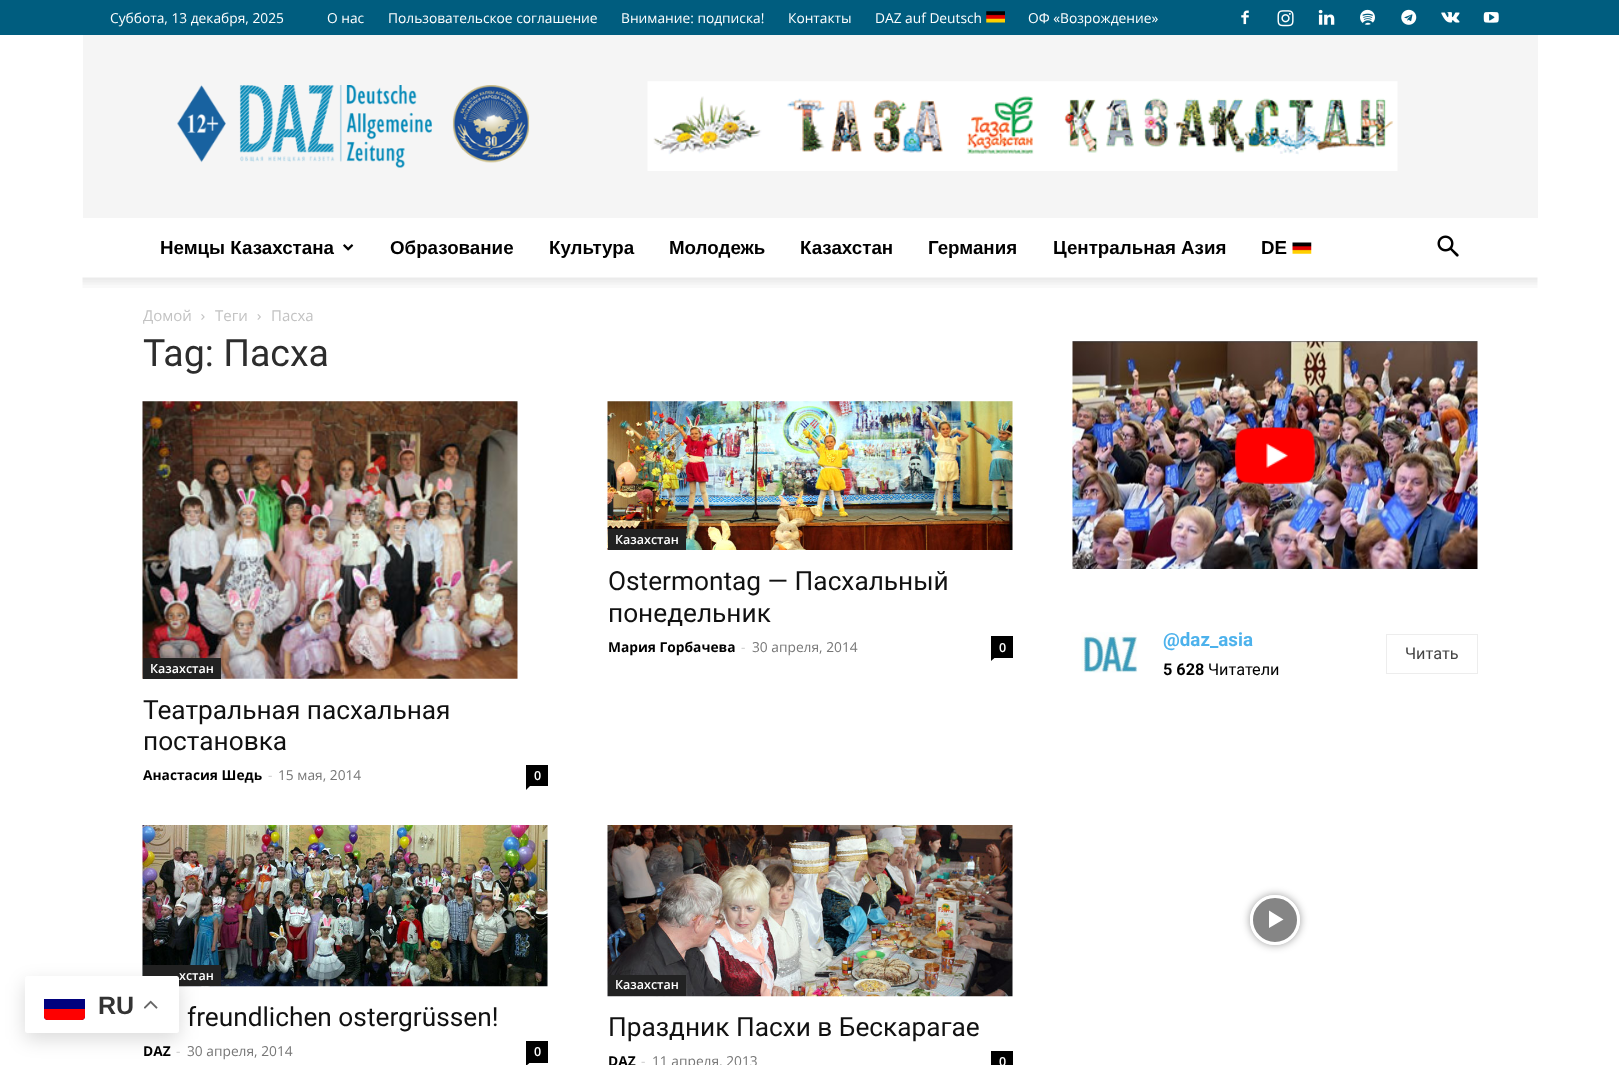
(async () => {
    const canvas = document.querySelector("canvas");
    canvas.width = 1619;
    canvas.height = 1065;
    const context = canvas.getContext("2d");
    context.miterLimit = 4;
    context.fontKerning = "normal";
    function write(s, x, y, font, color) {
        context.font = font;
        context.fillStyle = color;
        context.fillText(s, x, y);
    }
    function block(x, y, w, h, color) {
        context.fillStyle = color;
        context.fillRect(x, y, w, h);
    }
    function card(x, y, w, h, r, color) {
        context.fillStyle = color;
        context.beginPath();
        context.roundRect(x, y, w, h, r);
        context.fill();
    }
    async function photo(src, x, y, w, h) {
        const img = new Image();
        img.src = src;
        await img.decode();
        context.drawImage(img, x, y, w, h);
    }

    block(0, 0, 1619, 1065, "rgb(255, 255, 255)");
    block(0, 0, 1619, 35, "rgb(0, 93, 127)");
    write("Суббота, 13 декабря, 2025", 110, 23, "13.75px Open Sans", "rgb(255, 255, 255)");
    write("О нас", 327, 23, "13.75px Open Sans", "rgb(255, 255, 255)");
    write("Пользовательское соглашение", 388, 23, "13.75px Open Sans", "rgb(255, 255, 255)");
    write("Внимание: подписка!", 621, 23, "13.75px Open Sans", "rgb(255, 255, 255)");
    write("Контакты", 788, 23, "13.75px Open Sans", "rgb(255, 255, 255)");
    write("DAZ auf Deutsch", 875, 23, "13.75px Open Sans", "rgb(255, 255, 255)");
    await photo("media/1.png", 986, 11, 19, 12);
    write("ОФ «Возрождение»", 1028, 23, "13.75px Open Sans", "rgb(255, 255, 255)");
    await photo("media/2.png", 1241, 10, 8, 15);
    await photo("media/3.png", 1277, 10, 17, 17);
    await photo("media/4.png", 1318, 9, 17, 16);
    await photo("media/5.png", 1360, 9, 15, 16);
    await photo("media/6.png", 1401, 9, 16, 16);
    await photo("media/7.png", 1441, 12, 19, 11);
    await photo("media/8.png", 1483, 12, 16, 11);
    block(83, 35, 1455, 183, "rgb(245, 245, 245)");
    await photo("media/9.png", 177, 85, 353, 83);
    await photo("media/10.png", 647, 81, 751, 90);
    write("Немцы Казахстана", 160, 254, "bold 18.75px Liberation Sans", "rgb(0, 0, 0)");
    await photo("media/11.png", 343, 244, 11, 7);
    write("Образование", 390, 254, "bold 18.75px Liberation Sans", "rgb(0, 0, 0)");
    write("Культура", 549, 254, "bold 18.75px Liberation Sans", "rgb(0, 0, 0)");
    write("Молодежь", 669, 254, "bold 18.75px Liberation Sans", "rgb(0, 0, 0)");
    write("Казахстан", 800, 254, "bold 18.75px Liberation Sans", "rgb(0, 0, 0)");
    write("Германия", 928, 254, "bold 18.75px Liberation Sans", "rgb(0, 0, 0)");
    write("Центральная Азия", 1053, 254, "bold 18.75px Liberation Sans", "rgb(0, 0, 0)");
    write("DE", 1261, 254, "bold 18.75px Liberation Sans", "rgb(0, 0, 0)");
    await photo("media/12.png", 1292, 242, 20, 12);
    await photo("media/13.png", 1437, 235, 22, 22);
    await photo("media/14.png", 82, 277, 1456, 11);
    write("Домой", 143, 321, "15px Open Sans", "rgb(195, 195, 195)");
    await photo("media/15.png", 201, 314, 4, 6);
    write("Теги", 215, 321, "15px Open Sans", "rgb(195, 195, 195)");
    await photo("media/16.png", 257, 314, 4, 6);
    write("Пасха", 271, 321, "15px Open Sans", "rgb(195, 195, 195)");
    write("Tag: Пасха", 143, 366, "37.5px Roboto", "rgb(45, 45, 45)");
    await photo("media/17.png", 607, 401, 406, 149);
    block(608, 529, 78, 21, "rgb(34, 34, 34)");
    write("Казахстан", 615, 544, "600 12.5px Open Sans", "rgb(255, 255, 255)");
    write("Ostermontag — Пасхальный", 608, 590, "26.25px Roboto", "rgb(17, 17, 17)");
    write("понедельник", 608, 622, "26.25px Roboto", "rgb(17, 17, 17)");
    write("Мария Горбачева", 608, 652, "bold 13.75px Open Sans", "rgb(0, 0, 0)");
    write("-", 741, 652, "13.75px Open Sans", "rgb(204, 204, 204)");
    write("30 апреля, 2014", 752, 652, "13.75px Open Sans", "rgb(118, 118, 118)");
    block(991, 636, 22, 22, "rgb(0, 0, 0)");
    write("0", 999, 652, "600 12.5px Open Sans", "rgb(255, 255, 255)");
    context.fillStyle = "rgb(0, 0, 0)";
    context.beginPath();
    context.moveTo(991, 657.5);
    context.lineTo(995, 657.5);
    context.lineTo(991, 661);
    context.closePath();
    context.fill();
    await photo("media/18.png", 142, 401, 376, 278);
    block(143, 658, 78, 21, "rgb(34, 34, 34)");
    write("Казахстан", 150, 673, "600 12.5px Open Sans", "rgb(255, 255, 255)");
    write("Театральная пасхальная", 143, 719, "26.25px Roboto", "rgb(17, 17, 17)");
    write("постановка", 143, 750, "26.25px Roboto", "rgb(17, 17, 17)");
    write("Анастасия Шедь", 143, 780, "bold 13.75px Open Sans", "rgb(0, 0, 0)");
    write("-", 268, 780, "13.75px Open Sans", "rgb(204, 204, 204)");
    write("15 мая, 2014", 278, 780, "13.75px Open Sans", "rgb(118, 118, 118)");
    block(526, 765, 22, 21, "rgb(0, 0, 0)");
    write("0", 534, 780, "600 12.5px Open Sans", "rgb(255, 255, 255)");
    context.fillStyle = "rgb(0, 0, 0)";
    context.beginPath();
    context.moveTo(526, 786);
    context.lineTo(530, 786);
    context.lineTo(526, 790);
    context.closePath();
    context.fill();
    await photo("media/19.png", 142, 825, 406, 162);
    block(143, 965, 78, 21, "rgb(34, 34, 34)");
    write("хстан", 179, 980, "600 12.5px Open Sans", "rgb(255, 255, 255)");
    write("freundlichen ostergrüssen!", 187, 1026, "26.25px Roboto", "rgb(17, 17, 17)");
    write("DAZ", 143, 1056, "bold 13.75px Open Sans", "rgb(0, 0, 0)");
    write("-", 176, 1056, "13.75px Open Sans", "rgb(204, 204, 204)");
    write("30 апреля, 2014", 187, 1056, "13.75px Open Sans", "rgb(118, 118, 118)");
    block(526, 1041, 22, 22, "rgb(0, 0, 0)");
    write("0", 534, 1056, "600 12.5px Open Sans", "rgb(255, 255, 255)");
    context.fillStyle = "rgb(0, 0, 0)";
    context.beginPath();
    context.moveTo(526, 1062.5);
    context.lineTo(530, 1062.5);
    context.lineTo(526, 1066);
    context.closePath();
    context.fill();
    await photo("media/20.png", 607, 825, 406, 172);
    block(608, 975, 78, 21, "rgb(34, 34, 34)");
    write("Казахстан", 615, 989, "600 12.5px Open Sans", "rgb(255, 255, 255)");
    write("Праздник Пасхи в Бескарагае", 608, 1036, "26.25px Roboto", "rgb(17, 17, 17)");
    write("DAZ", 608, 1066, "bold 13.75px Open Sans", "rgb(0, 0, 0)");
    write("-", 641, 1066, "13.75px Open Sans", "rgb(204, 204, 204)");
    write("11 апреля, 2013", 652, 1066, "13.75px Open Sans", "rgb(118, 118, 118)");
    block(991, 1051, 22, 14, "rgb(0, 0, 0)");
    write("0", 999, 1066, "600 12.5px Open Sans", "rgb(255, 255, 255)");
    await photo("media/21.png", 1072, 341, 406, 228);
    await photo("media/22.png", 1234, 427, 82, 57);
    await photo("media/23.png", 1081, 632, 57, 41);
    write("@daz_asia", 1163, 646, "bold 18.75px Roboto", "rgb(77, 178, 236)");
    context.strokeStyle = "rgb(237, 237, 237)";
    context.strokeRect(1386.5, 634.5, 91, 39);
    write("Читать", 1405, 659, "16.25px Roboto", "rgb(68, 68, 68)");
    write("5 628", 1163, 675, "bold 16.25px Roboto", "rgb(0, 0, 0)");
    write("Читатели", 1208, 675, "16.25px Roboto", "rgb(0, 0, 0)");
    context.save();
    context.beginPath();
    context.moveTo(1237, 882);
    context.lineTo(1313, 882);
    context.lineTo(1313, 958);
    context.lineTo(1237, 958);
    context.closePath();
    context.moveTo(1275, 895);
    context.bezierCurveTo(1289, 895, 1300, 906, 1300, 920);
    context.bezierCurveTo(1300, 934, 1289, 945, 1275, 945);
    context.bezierCurveTo(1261, 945, 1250, 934, 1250, 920);
    context.bezierCurveTo(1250, 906, 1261, 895, 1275, 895);
    context.closePath();
    context.clip("evenodd");
    context.fillStyle = "rgba(0, 0, 0, 0.4)";
    context.filter = "blur(4px)";
    context.beginPath();
    context.roundRect(1250, 895, 50, 50, 25);
    context.fill();
    context.filter = "none";
    context.restore();
    context.fillStyle = "rgba(0, 0, 0, 0.48)";
    context.beginPath();
    context.arc(1275, 920, 23.5, 0, Math.PI * 2);
    context.fill();
    context.strokeStyle = "rgb(255, 255, 255)";
    context.lineWidth = 3;
    context.stroke();
    context.fillStyle = "rgb(255, 255, 255)";
    context.beginPath();
    context.moveTo(1269, 910.5);
    context.lineTo(1269, 928);
    context.lineTo(1283.5, 919.5);
    context.closePath();
    context.fill();
    context.fillStyle = "rgba(0, 0, 0, 0.15)";
    context.filter = "blur(9.5px)";
    context.beginPath();
    context.roundRect(25, 983, 154, 56, 2.5);
    context.fill();
    context.filter = "none";
    card(25, 976, 154, 57, 2.5, "rgb(255, 255, 255)");
    context.fillStyle = "rgb(1, 1, 126)";
    context.beginPath();
    context.roundRect(44, 999, 41, 21, [0, 0, 4, 4]);
    context.fill();
    context.fillStyle = "rgb(254, 1, 1)";
    context.beginPath();
    context.roundRect(44, 1009, 41, 11, [0, 0, 4, 4]);
    context.fill();
    write("RU", 98, 1014, "bold 25px Liberation Sans", "rgb(51, 51, 51)");
    await photo("media/24.png", 144, 1000, 14, 9);
})();
